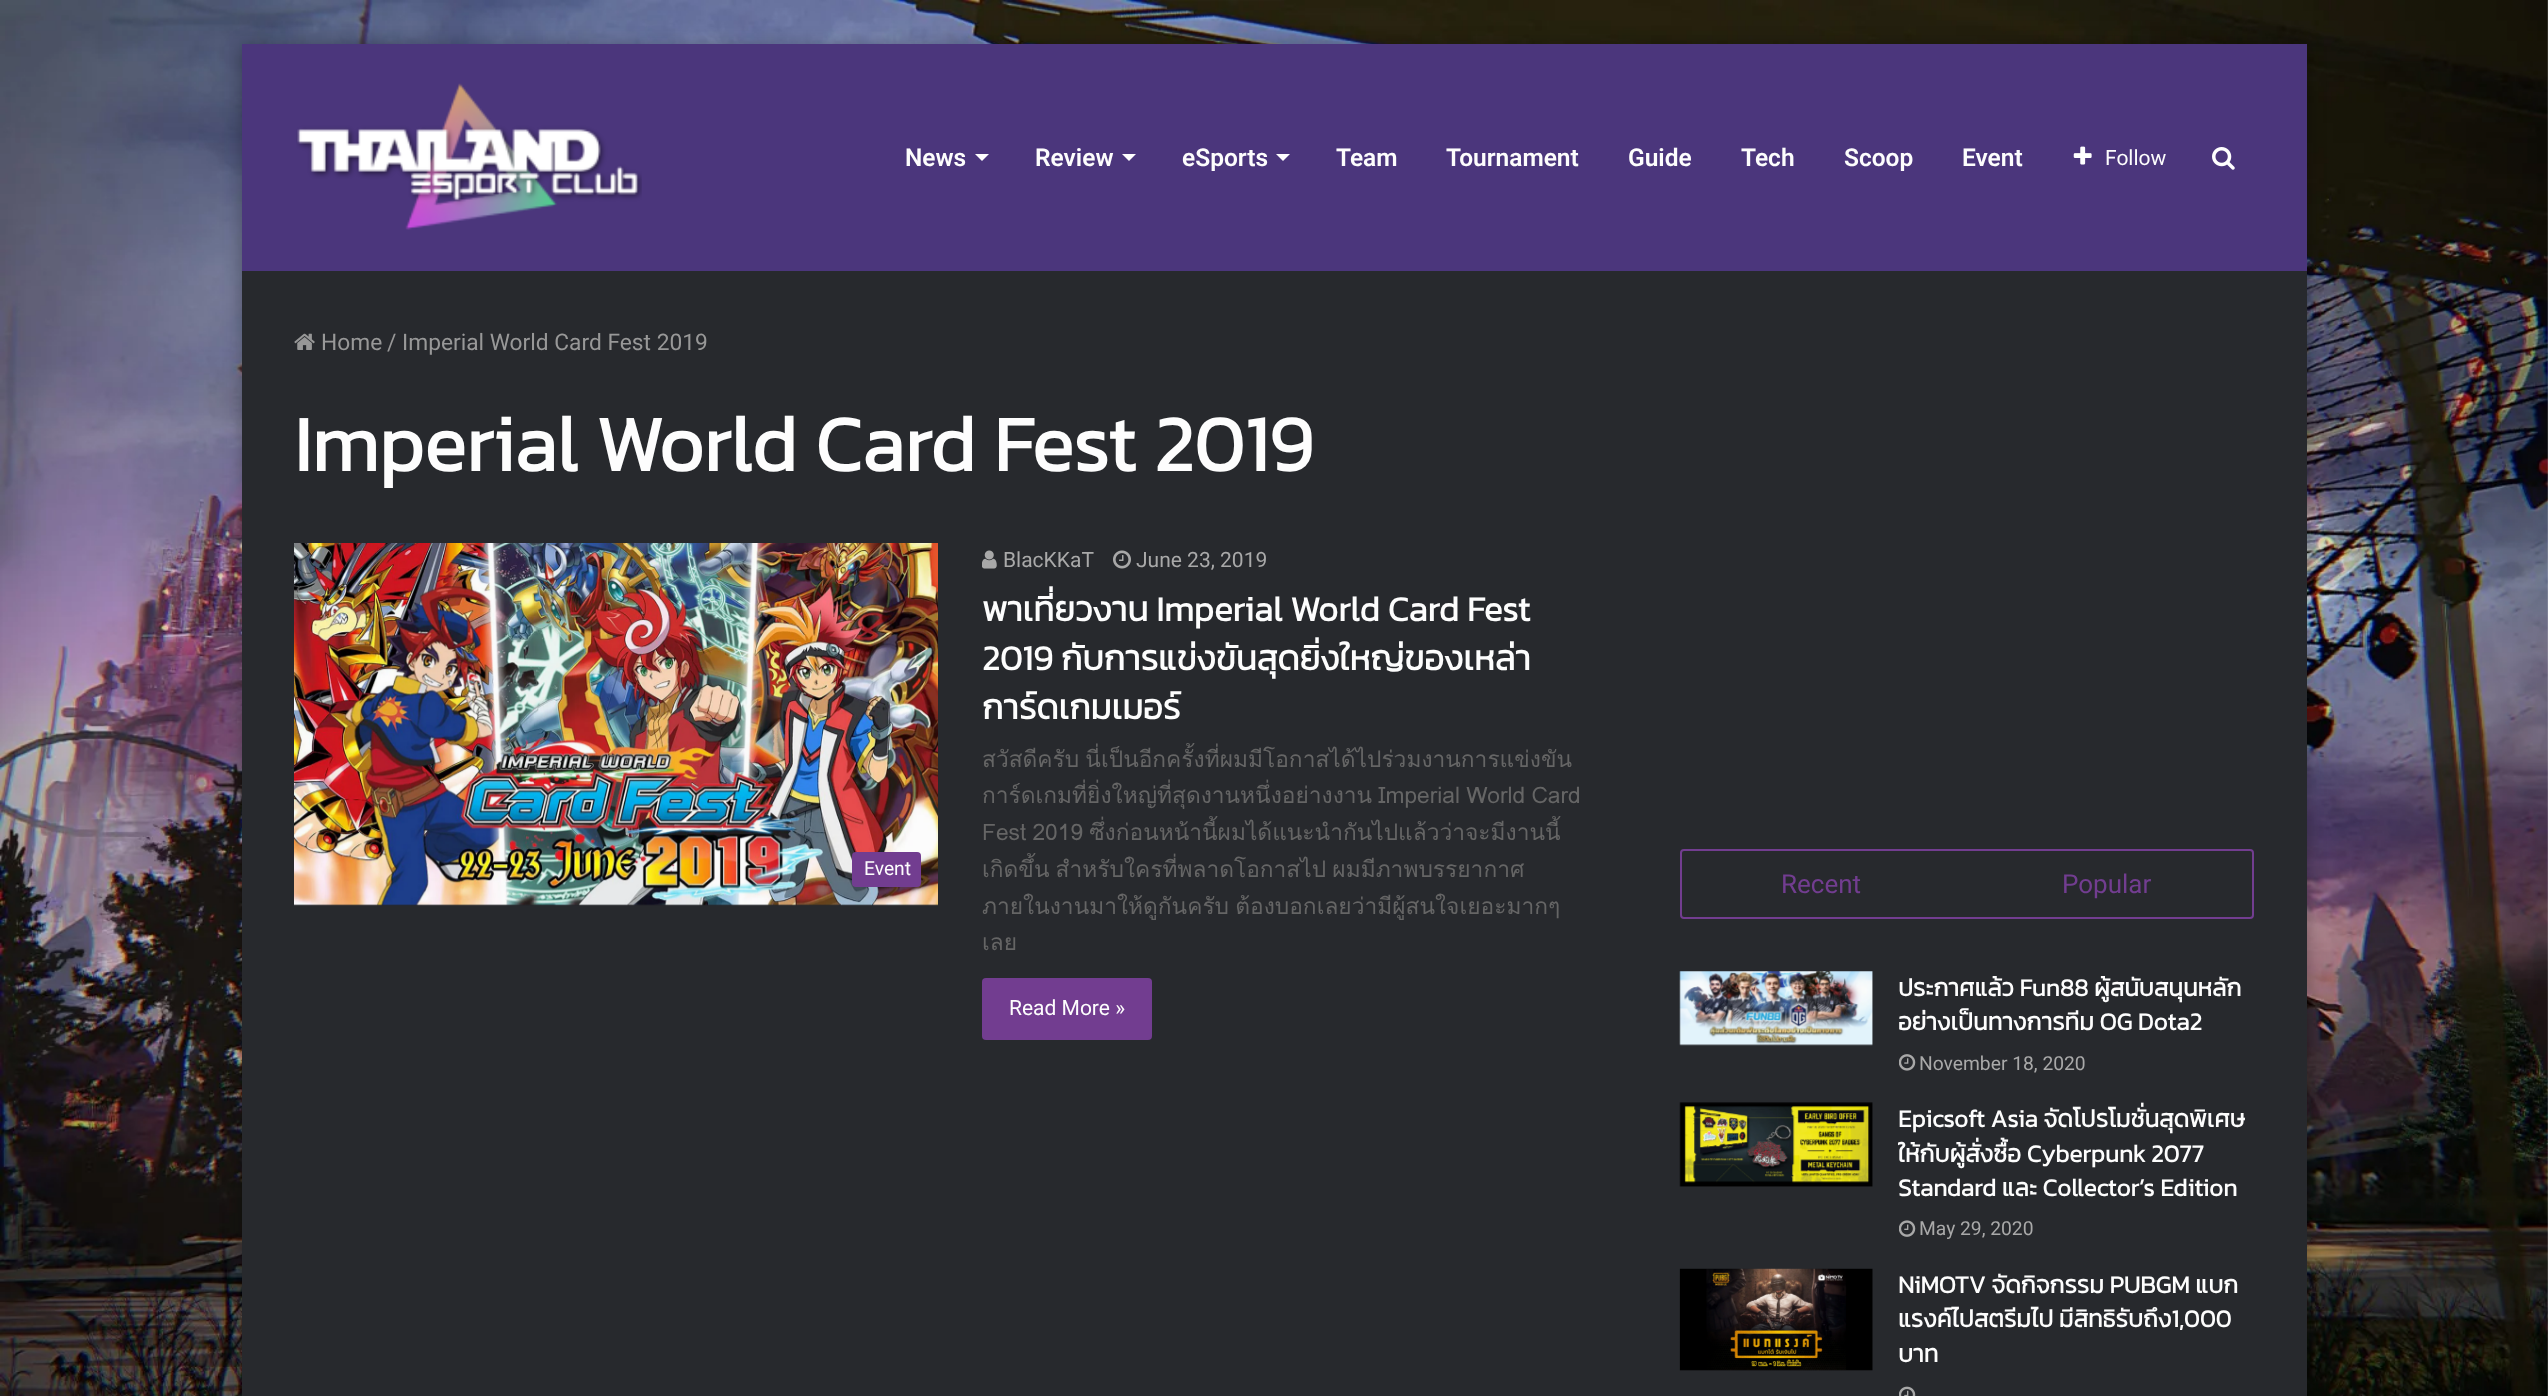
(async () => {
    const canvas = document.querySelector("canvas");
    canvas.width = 2548;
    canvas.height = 1396;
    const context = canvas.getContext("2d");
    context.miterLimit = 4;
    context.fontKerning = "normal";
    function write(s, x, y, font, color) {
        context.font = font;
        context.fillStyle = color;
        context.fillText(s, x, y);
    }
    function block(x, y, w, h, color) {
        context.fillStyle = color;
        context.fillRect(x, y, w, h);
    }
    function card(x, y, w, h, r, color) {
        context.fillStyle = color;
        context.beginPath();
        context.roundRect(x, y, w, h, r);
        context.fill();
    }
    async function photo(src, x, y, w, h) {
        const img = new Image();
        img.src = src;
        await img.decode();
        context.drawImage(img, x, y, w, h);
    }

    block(0, 0, 2548, 1396, "rgb(255, 255, 255)");
    await photo("media/1.png", 0, 0, 2548, 1396);
    context.fillStyle = "rgba(0, 0, 0, 0.3)";
    context.filter = "blur(9px)";
    context.beginPath();
    context.rect(242, 46, 2065, 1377);
    context.fill();
    context.filter = "none";
    block(242, 271, 2065, 1125, "rgb(39, 41, 45)");
    block(242, 44, 2065, 227, "rgb(75, 54, 124)");
    await photo("media/2.png", 296, 83, 346, 147);
    write("News", 905, 166, "600 24.5px Roboto", "rgb(253, 253, 253)");
    context.fillStyle = "rgb(255, 255, 255)";
    context.beginPath();
    context.moveTo(975, 154);
    context.lineTo(989, 154);
    context.lineTo(982, 161);
    context.closePath();
    context.fill();
    write("Review", 1035, 166, "600 24.5px Roboto", "rgb(253, 253, 253)");
    context.fillStyle = "rgb(255, 255, 255)";
    context.beginPath();
    context.moveTo(1122, 154);
    context.lineTo(1136, 154);
    context.lineTo(1129, 161);
    context.closePath();
    context.fill();
    write("eSports", 1182, 166, "600 24.5px Roboto", "rgb(253, 253, 253)");
    context.fillStyle = "rgb(255, 255, 255)";
    context.beginPath();
    context.moveTo(1276, 154);
    context.lineTo(1290, 154);
    context.lineTo(1283, 161);
    context.closePath();
    context.fill();
    write("Team", 1336, 166, "600 24.5px Roboto", "rgb(253, 253, 253)");
    write("Tournament", 1446, 166, "600 24.5px Roboto", "rgb(253, 253, 253)");
    write("Guide", 1628, 166, "600 24.5px Roboto", "rgb(253, 253, 253)");
    write("Tech", 1741, 166, "600 24.5px Roboto", "rgb(253, 253, 253)");
    write("Scoop", 1844, 166, "600 24.5px Roboto", "rgb(253, 253, 253)");
    write("Event", 1962, 166, "600 24.5px Roboto", "rgb(253, 253, 253)");
    await photo("media/3.png", 2073, 146, 19, 19);
    write("Follow", 2105, 165, "21px Roboto", "rgb(253, 253, 253)");
    await photo("media/4.png", 2212, 147, 23, 23);
    await photo("media/5.png", 294, 333, 21, 17);
    write("Home", 321, 350, "22.75px Roboto", "rgb(152, 152, 152)");
    write("/", 387, 350, "22.75px Roboto", "rgb(152, 152, 152)");
    write("Imperial World Card Fest 2019", 402, 350, "22.75px Roboto", "rgb(152, 152, 152)");
    write("Imperial World Card Fest 2019", 294, 471, "bold 78.75px Kanit", "rgb(253, 253, 253)");
    await photo("media/6.png", 294, 543, 644, 363);
    card(852, 852, 69, 35, 4, "rgb(114, 61, 144)");
    write("Event", 864, 875, "19.25px Roboto", "rgb(253, 253, 253)");
    await photo("media/7.png", 982, 550, 15, 19);
    write("BlacKKaT", 1003, 567, "21px Roboto", "rgb(169, 169, 169)");
    await photo("media/8.png", 1113, 550, 18, 19);
    write("June 23, 2019", 1136, 567, "21px Roboto", "rgb(169, 169, 169)");
    write("พาเที่ยวงาน Imperial World Card Fest", 982, 621, "bold 35px Kanit", "rgb(253, 253, 253)");
    write("2019 กับการแข่งขันสุดยิ่งใหญ่ของเหล่า", 982, 670, "bold 35px Kanit", "rgb(253, 253, 253)");
    write("การ์ดเกมเมอร์", 982, 719, "bold 35px Kanit", "rgb(253, 253, 253)");
    context.wordSpacing = "-1.5px";
    write("สวัสดีครับ นี่เป็นอีกครั้งที่ผมมีโอกาสได้ไปร่วมงานการแข่งขัน", 982, 767, "22.75px Loma", "rgb(101, 101, 101)");
    write("การ์ดเกมที่ยิ่งใหญ่ที่สุดงานหนึ่งอย่างงาน Imperial World Card", 982, 803, "22.75px Loma", "rgb(101, 101, 101)");
    write("Fest 2019 ซึ่งก่อนหน้านี้ผมได้แนะนำกันไปแล้วว่าจะมีงานนี้", 982, 840, "22.75px Loma", "rgb(101, 101, 101)");
    write("เกิดขึ้น สำหรับใครที่พลาดโอกาสไป ผมมีภาพบรรยากาศ", 982, 877, "22.75px Loma", "rgb(101, 101, 101)");
    write("ภายในงานมาให้ดูกันครับ ต้องบอกเลยว่ามีผู้สนใจเยอะมากๆ", 982, 914, "22.75px Loma", "rgb(101, 101, 101)");
    context.wordSpacing = "0px";
    write("เลย", 982, 950, "22.75px Loma", "rgb(101, 101, 101)");
    card(982, 978, 170, 62, 4, "rgb(114, 61, 144)");
    write("Read More »", 1009, 1015, "21px Roboto", "rgb(253, 253, 253)");
    context.beginPath();
    context.roundRect(1681, 850, 572, 68, 3);
    context.strokeStyle = "rgb(114, 61, 144)";
    context.lineWidth = 2;
    context.stroke();
    write("Recent", 1781, 893, "26px Roboto", "rgb(114, 61, 144)");
    write("Popular", 2062, 893, "26px Roboto", "rgb(114, 61, 144)");
    await photo("media/9.png", 1679, 971, 194, 75);
    write("ประกาศแล้ว Fun88 ผู้สนับสนุนหลัก", 1898, 996, "bold 24.5px Kanit", "rgb(253, 253, 253)");
    write("อย่างเป็นทางการทีม OG Dota2", 1898, 1030, "bold 24.5px Kanit", "rgb(253, 253, 253)");
    await photo("media/10.png", 1899, 1054, 17, 17);
    write("November 18, 2020", 1919, 1070, "19.25px Roboto", "rgb(169, 169, 169)");
    await photo("media/11.png", 1679, 1102, 194, 85);
    write("Epicsoft Asia จัดโปรโมชั่นสุดพิเศษ", 1898, 1127, "bold 24.5px Kanit", "rgb(253, 253, 253)");
    write("ให้กับผู้สั่งซื้อ Cyberpunk 2077", 1898, 1162, "bold 24.5px Kanit", "rgb(253, 253, 253)");
    write("Standard และ Collector’s Edition", 1898, 1196, "bold 24.5px Kanit", "rgb(253, 253, 253)");
    await photo("media/12.png", 1899, 1220, 17, 17);
    write("May 29, 2020", 1919, 1235, "19.25px Roboto", "rgb(169, 169, 169)");
    await photo("media/13.png", 1679, 1268, 194, 103);
    write("NiMOTV จัดกิจกรรม PUBGM แบก", 1898, 1293, "bold 24.5px Kanit", "rgb(253, 253, 253)");
    write("แรงค์ไปสตรีมไป มีสิทธิรับถึง1,000", 1898, 1327, "bold 24.5px Kanit", "rgb(253, 253, 253)");
    write("บาท", 1898, 1362, "bold 24.5px Kanit", "rgb(253, 253, 253)");
    await photo("media/14.png", 1899, 1386, 17, 10);
})();
